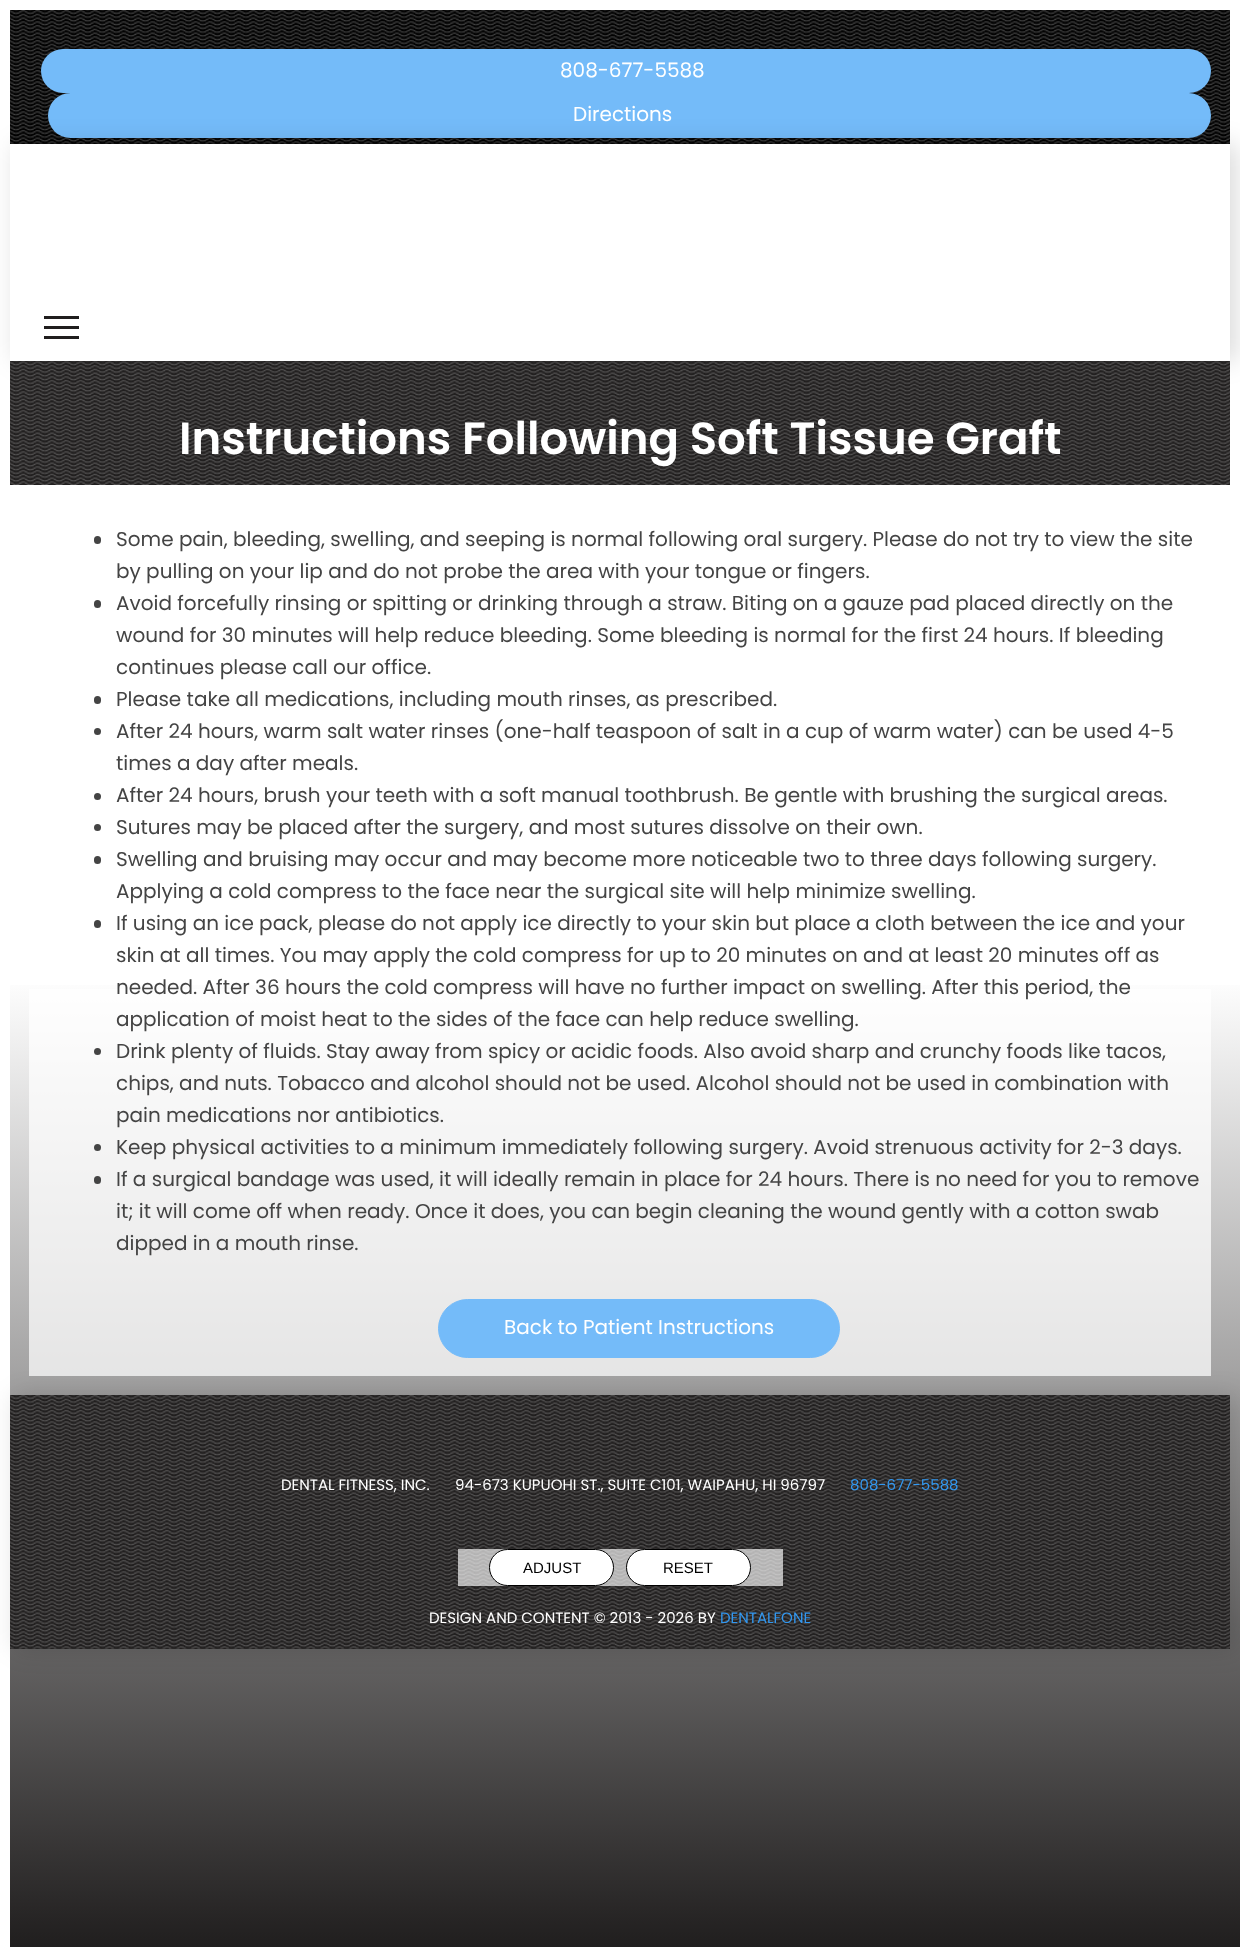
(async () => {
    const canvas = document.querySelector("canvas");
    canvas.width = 1240;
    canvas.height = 1947;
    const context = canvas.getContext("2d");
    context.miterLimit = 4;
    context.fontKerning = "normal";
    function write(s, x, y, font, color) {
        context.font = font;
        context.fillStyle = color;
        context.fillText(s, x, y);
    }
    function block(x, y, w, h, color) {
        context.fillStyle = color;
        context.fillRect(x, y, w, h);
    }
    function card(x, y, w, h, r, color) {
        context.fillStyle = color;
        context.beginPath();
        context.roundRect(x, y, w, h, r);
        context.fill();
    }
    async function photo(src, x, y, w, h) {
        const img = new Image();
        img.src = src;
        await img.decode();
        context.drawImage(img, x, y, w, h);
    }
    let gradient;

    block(0, 0, 1240, 1947, "rgb(255, 255, 255)");
    block(10, 10, 1220, 134, "rgb(0, 0, 0)");
    await photo("media/1.png", 10, 10, 1220, 134);
    card(41, 49, 1170, 44, 22, "rgb(116, 187, 249)");
    write("808-677-5588", 560, 77, "20px Poppins", "rgb(255, 255, 255)");
    card(48, 93, 1163, 45, 22.5, "rgb(116, 187, 249)");
    context.save();
    context.beginPath();
    context.moveTo(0, 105);
    context.lineTo(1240, 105);
    context.lineTo(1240, 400);
    context.lineTo(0, 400);
    context.closePath();
    context.moveTo(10, 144);
    context.lineTo(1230, 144);
    context.lineTo(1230, 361);
    context.lineTo(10, 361);
    context.closePath();
    context.clip("evenodd");
    context.fillStyle = "rgba(0, 0, 0, 0.15)";
    context.filter = "blur(12.5px)";
    context.beginPath();
    context.rect(16, 144, 1220, 217);
    context.fill();
    context.filter = "none";
    context.restore();
    write("Directions", 573, 121, "20px Poppins", "rgb(255, 255, 255)");
    block(44, 326, 35, 3, "rgb(32, 30, 30)");
    block(44, 316, 35, 3, "rgb(32, 30, 30)");
    block(44, 336, 35, 3, "rgb(32, 30, 30)");
    block(10, 361, 1220, 124, "rgb(32, 30, 30)");
    await photo("media/2.png", 10, 361, 1220, 124);
    write("Instructions Following Soft Tissue Graft", 179, 454, "600 45px Poppins", "rgb(255, 255, 255)");
    gradient = context.createLinearGradient(620, 0, 620, 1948);
    gradient.addColorStop(0.5, "rgb(255, 255, 255)");
    gradient.addColorStop(1, "rgb(32, 30, 30)");
    context.fillStyle = gradient;
    context.fillRect(10, 985, 1230, 962);
    context.fillStyle = "rgba(0, 0, 0, 0.15)";
    context.filter = "blur(12.5px)";
    context.beginPath();
    context.rect(16, 1395, 1220, 254);
    context.fill();
    context.filter = "none";
    block(29, 989, 1182, 387, "rgba(255, 255, 255, 0.72)");
    card(94, 536, 7, 8, 3.5, "rgb(68, 68, 68)");
    write("Some pain, bleeding, swelling, and seeping is normal following oral surgery. Please do not try to view the site", 116, 546, "20px Poppins", "rgb(68, 68, 68)");
    write("by pulling on your lip and do not probe the area with your tongue or fingers.", 116, 578, "20px Poppins", "rgb(68, 68, 68)");
    card(94, 600, 7, 8, 3.5, "rgb(68, 68, 68)");
    write("Avoid forcefully rinsing or spitting or drinking through a straw. Biting on a gauze pad placed directly on the", 116, 610, "20px Poppins", "rgb(68, 68, 68)");
    write("wound for 30 minutes will help reduce bleeding. Some bleeding is normal for the first 24 hours. If bleeding", 116, 642, "20px Poppins", "rgb(68, 68, 68)");
    write("continues please call our office.", 116, 674, "20px Poppins", "rgb(68, 68, 68)");
    card(94, 696, 7, 8, 3.5, "rgb(68, 68, 68)");
    write("Please take all medications, including mouth rinses, as prescribed.", 116, 706, "20px Poppins", "rgb(68, 68, 68)");
    context.beginPath();
    context.arc(97.5, 731.5, 3.5, 0, Math.PI * 2);
    context.fill();
    write("After 24 hours, warm salt water rinses (one-half teaspoon of salt in a cup of warm water) can be used 4-5", 116, 738, "20px Poppins", "rgb(68, 68, 68)");
    write("times a day after meals.", 116, 770, "20px Poppins", "rgb(68, 68, 68)");
    context.beginPath();
    context.arc(97.5, 796.5, 3.5, 0, Math.PI * 2);
    context.fill();
    write("After 24 hours, brush your teeth with a soft manual toothbrush. Be gentle with brushing the surgical areas.", 116, 802, "20px Poppins", "rgb(68, 68, 68)");
    context.beginPath();
    context.arc(97.5, 827.5, 3.5, 0, Math.PI * 2);
    context.fill();
    write("Sutures may be placed after the surgery, and most sutures dissolve on their own.", 116, 834, "20px Poppins", "rgb(68, 68, 68)");
    card(94, 856, 7, 8, 3.5, "rgb(68, 68, 68)");
    write("Swelling and bruising may occur and may become more noticeable two to three days following surgery.", 116, 866, "20px Poppins", "rgb(68, 68, 68)");
    write("Applying a cold compress to the face near the surgical site will help minimize swelling.", 116, 898, "20px Poppins", "rgb(68, 68, 68)");
    card(94, 920, 7, 8, 3.5, "rgb(68, 68, 68)");
    write("If using an ice pack, please do not apply ice directly to your skin but place a cloth between the ice and your", 116, 930, "20px Poppins", "rgb(68, 68, 68)");
    write("skin at all times. You may apply the cold compress for up to 20 minutes on and at least 20 minutes off as", 116, 962, "20px Poppins", "rgb(68, 68, 68)");
    write("needed. After 36 hours the cold compress will have no further impact on swelling. After this period, the", 116, 994, "20px Poppins", "rgb(68, 68, 68)");
    write("application of moist heat to the sides of the face can help reduce swelling.", 116, 1026, "20px Poppins", "rgb(68, 68, 68)");
    context.beginPath();
    context.arc(97.5, 1051.5, 3.5, 0, Math.PI * 2);
    context.fill();
    write("Drink plenty of fluids. Stay away from spicy or acidic foods. Also avoid sharp and crunchy foods like tacos,", 116, 1058, "20px Poppins", "rgb(68, 68, 68)");
    write("chips, and nuts. Tobacco and alcohol should not be used. Alcohol should not be used in combination with", 116, 1090, "20px Poppins", "rgb(68, 68, 68)");
    write("pain medications nor antibiotics.", 116, 1122, "20px Poppins", "rgb(68, 68, 68)");
    context.beginPath();
    context.arc(97.5, 1147.5, 3.5, 0, Math.PI * 2);
    context.fill();
    write("Keep physical activities to a minimum immediately following surgery. Avoid strenuous activity for 2-3 days.", 116, 1154, "20px Poppins", "rgb(68, 68, 68)");
    card(94, 1176, 7, 8, 3.5, "rgb(68, 68, 68)");
    write("If a surgical bandage was used, it will ideally remain in place for 24 hours. There is no need for you to remove", 116, 1186, "20px Poppins", "rgb(68, 68, 68)");
    write("it; it will come off when ready. Once it does, you can begin cleaning the wound gently with a cotton swab", 116, 1218, "20px Poppins", "rgb(68, 68, 68)");
    write("dipped in a mouth rinse.", 116, 1250, "20px Poppins", "rgb(68, 68, 68)");
    context.fillStyle = "rgb(116, 187, 249)";
    context.beginPath();
    context.roundRect(438.5, 1299.5, 401, 58, 29);
    context.fill();
    context.strokeStyle = "rgb(116, 187, 249)";
    context.stroke();
    write("Back to Patient Instructions", 504, 1334, "20px Poppins", "rgb(255, 255, 255)");
    block(10, 1395, 1220, 254, "rgb(32, 30, 30)");
    await photo("media/3.png", 10, 1395, 1220, 254);
    write("DENTAL FITNESS, INC.", 281, 1490, "15px Poppins", "rgb(255, 255, 255)");
    write("94-673 KUPUOHI ST., SUITE C101, WAIPAHU, HI 96797", 455, 1490, "15px Poppins", "rgb(255, 255, 255)");
    write("808-677-5588", 850, 1490, "15px Poppins", "rgb(50, 151, 239)");
    block(458, 1549, 325, 37, "rgba(255, 255, 255, 0.66)");
    context.fillStyle = "rgb(255, 255, 255)";
    context.beginPath();
    context.roundRect(489.5, 1549.5, 124, 36, 18);
    context.fill();
    context.strokeStyle = "rgb(0, 0, 0)";
    context.stroke();
    write("ADJUST", 523, 1573, "15px Liberation Sans", "rgb(0, 0, 0)");
    context.fillStyle = "rgb(255, 255, 255)";
    context.beginPath();
    context.roundRect(626.5, 1549.5, 124, 36, 18);
    context.fill();
    context.stroke();
    write("RESET", 663, 1573, "15px Liberation Sans", "rgb(0, 0, 0)");
    write("DESIGN AND CONTENT © 2013 - 2026 BY", 429, 1623, "15px Poppins", "rgb(255, 255, 255)");
    write("DENTALFONE", 720, 1623, "15px Poppins", "rgb(50, 151, 239)");
})();
